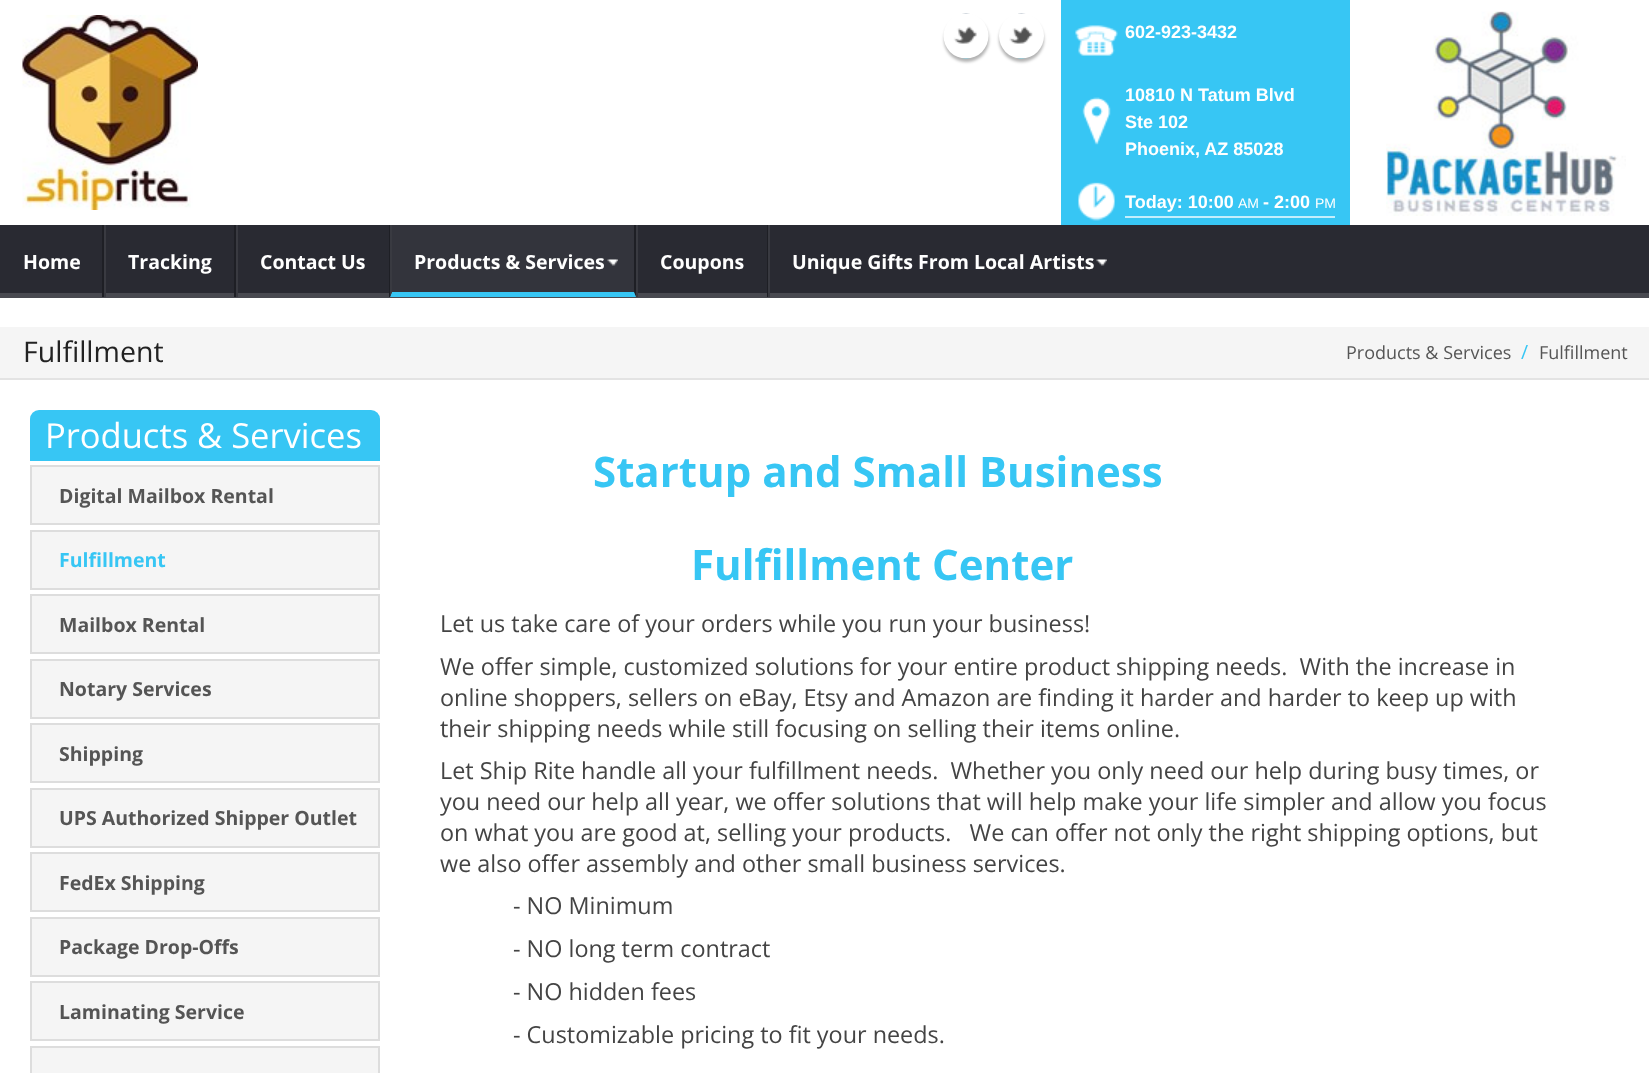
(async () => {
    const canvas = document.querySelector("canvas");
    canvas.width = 1649;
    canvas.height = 1073;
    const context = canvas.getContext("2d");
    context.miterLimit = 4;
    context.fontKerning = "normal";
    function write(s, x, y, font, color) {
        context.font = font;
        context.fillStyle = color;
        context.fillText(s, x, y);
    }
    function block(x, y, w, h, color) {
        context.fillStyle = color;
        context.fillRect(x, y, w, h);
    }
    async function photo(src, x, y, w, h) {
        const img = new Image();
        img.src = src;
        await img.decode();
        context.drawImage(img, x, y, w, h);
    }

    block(0, 0, 1649, 1073, "rgb(255, 255, 255)");
    await photo("media/1.png", 22, 15, 176, 195);
    context.fillStyle = "rgba(0, 0, 0, 0.3)";
    context.filter = "blur(1.5px)";
    context.beginPath();
    context.roundRect(944, 17, 45, 45, 22.5);
    context.fill();
    context.filter = "none";
    await photo("media/2.png", 943, 13, 46, 46);
    context.filter = "blur(1.5px)";
    context.beginPath();
    context.roundRect(999, 17, 45, 45, 22.5);
    context.fill();
    context.filter = "none";
    await photo("media/3.png", 999, 13, 45, 46);
    block(1061, 0, 289, 225, "rgb(55, 198, 244)");
    await photo("media/4.png", 1075, 25, 43, 31);
    write("602-923-3432", 1125, 38, "bold 18px Liberation Sans", "rgb(255, 255, 255)");
    await photo("media/5.png", 1082, 97, 29, 48);
    write("10810 N Tatum Blvd", 1125, 101, "bold 18px Liberation Sans", "rgb(255, 255, 255)");
    write("Ste 102", 1125, 128, "bold 18px Liberation Sans", "rgb(255, 255, 255)");
    write("Phoenix, AZ 85028", 1125, 155, "bold 18px Liberation Sans", "rgb(255, 255, 255)");
    await photo("media/6.png", 1078, 182, 37, 39);
    block(1125, 216, 210, 2, "rgb(195, 238, 252)");
    write("Today: 10:00", 1125, 208, "bold 18px Liberation Sans", "rgb(255, 255, 255)");
    write("AM", 1238, 208, "14px Liberation Sans", "rgb(255, 255, 255)");
    write("- 2:00", 1263, 208, "bold 18px Liberation Sans", "rgb(255, 255, 255)");
    write("PM", 1315, 208, "14px Liberation Sans", "rgb(255, 255, 255)");
    await photo("media/7.png", 1386, 11, 240, 205);
    block(0, 225, 1649, 68, "rgb(41, 42, 50)");
    block(0, 293, 1649, 5, "rgb(72, 73, 80)");
    block(102, 225, 2, 72, "rgb(30, 31, 37)");
    write("Home", 23, 269, "bold 19.5px Open Sans", "rgb(255, 255, 255)");
    block(234, 225, 2, 72, "rgb(30, 31, 37)");
    block(104, 225, 2, 72, "rgb(57, 58, 65)");
    write("Tracking", 128, 269, "bold 19.5px Open Sans", "rgb(255, 255, 255)");
    block(389, 225, 2, 72, "rgb(30, 31, 37)");
    block(236, 225, 2, 72, "rgb(57, 58, 65)");
    write("Contact Us", 260, 269, "bold 19.5px Open Sans", "rgb(255, 255, 255)");
    block(390, 225, 246, 72, "rgba(255, 255, 255, 0.05)");
    context.fillStyle = "rgb(30, 31, 37)";
    context.beginPath();
    context.moveTo(636, 225);
    context.lineTo(636, 297);
    context.lineTo(634, 292);
    context.lineTo(634, 225);
    context.closePath();
    context.fill();
    context.fillStyle = "rgb(55, 198, 244)";
    context.beginPath();
    context.moveTo(636, 297);
    context.lineTo(390, 297);
    context.lineTo(392, 292);
    context.lineTo(634, 292);
    context.closePath();
    context.fill();
    context.fillStyle = "rgb(57, 58, 65)";
    context.beginPath();
    context.moveTo(390, 297);
    context.lineTo(390, 225);
    context.lineTo(392, 225);
    context.lineTo(392, 292);
    context.closePath();
    context.fill();
    write("Products & Services", 414, 269, "bold 19.5px Open Sans", "rgb(255, 255, 255)");
    await photo("media/8.png", 607, 259, 11, 7);
    block(767, 225, 1, 72, "rgb(30, 31, 37)");
    block(636, 225, 2, 72, "rgb(57, 58, 65)");
    write("Coupons", 660, 269, "bold 19.5px Open Sans", "rgb(255, 255, 255)");
    block(768, 225, 2, 72, "rgb(57, 58, 65)");
    write("Unique Gifts From Local Artists", 792, 269, "bold 19.5px Open Sans", "rgb(255, 255, 255)");
    await photo("media/9.png", 1096, 259, 11, 7);
    block(0, 327, 1649, 51, "rgb(245, 245, 245)");
    block(0, 378, 1649, 2, "rgb(227, 227, 227)");
    write("Fulfillment", 23, 362, "28.5px Open Sans", "rgb(34, 34, 34)");
    write("Products & Services", 1346, 359, "18px Open Sans", "rgb(85, 85, 85)");
    write("/", 1521, 359, "19.5px Open Sans", "rgb(55, 198, 244)");
    write("Fulfillment", 1539, 359, "18px Open Sans", "rgb(85, 85, 85)");
    context.fillStyle = "rgb(55, 198, 244)";
    context.beginPath();
    context.roundRect(30, 410, 350, 51, [9, 9, 0, 0]);
    context.fill();
    write("Products & Services", 45, 448, "34.5px Open Sans", "rgb(255, 255, 255)");
    context.fillStyle = "rgb(245, 245, 245)";
    context.beginPath();
    context.rect(31, 466, 348, 58);
    context.fill();
    context.strokeStyle = "rgb(221, 221, 221)";
    context.lineWidth = 2;
    context.stroke();
    write("Digital Mailbox Rental", 59, 503, "bold 19.5px Open Sans", "rgb(85, 85, 85)");
    context.fillStyle = "rgb(245, 245, 245)";
    context.beginPath();
    context.rect(31, 531, 348, 58);
    context.fill();
    context.stroke();
    write("Fulfillment", 59, 567, "bold 19.5px Open Sans", "rgb(55, 198, 244)");
    context.fillStyle = "rgb(245, 245, 245)";
    context.beginPath();
    context.rect(31, 595, 348, 58);
    context.fill();
    context.stroke();
    write("Mailbox Rental", 59, 632, "bold 19.5px Open Sans", "rgb(85, 85, 85)");
    context.fillStyle = "rgb(245, 245, 245)";
    context.beginPath();
    context.rect(31, 660, 348, 58);
    context.fill();
    context.stroke();
    write("Notary Services", 59, 696, "bold 19.5px Open Sans", "rgb(85, 85, 85)");
    context.fillStyle = "rgb(245, 245, 245)";
    context.beginPath();
    context.rect(31, 724, 348, 58);
    context.fill();
    context.stroke();
    write("Shipping", 59, 761, "bold 19.5px Open Sans", "rgb(85, 85, 85)");
    context.fillStyle = "rgb(245, 245, 245)";
    context.beginPath();
    context.rect(31, 789, 348, 58);
    context.fill();
    context.stroke();
    write("UPS Authorized Shipper Outlet", 59, 825, "bold 19.5px Open Sans", "rgb(85, 85, 85)");
    context.fillStyle = "rgb(245, 245, 245)";
    context.beginPath();
    context.rect(31, 853, 348, 58);
    context.fill();
    context.stroke();
    write("FedEx Shipping", 59, 890, "bold 19.5px Open Sans", "rgb(85, 85, 85)");
    context.fillStyle = "rgb(245, 245, 245)";
    context.beginPath();
    context.rect(31, 918, 348, 58);
    context.fill();
    context.stroke();
    write("Package Drop-Offs", 59, 954, "bold 19.5px Open Sans", "rgb(85, 85, 85)");
    context.fillStyle = "rgb(245, 245, 245)";
    context.beginPath();
    context.rect(31, 982, 348, 58);
    context.fill();
    context.stroke();
    write("Laminating Service", 59, 1019, "bold 19.5px Open Sans", "rgb(85, 85, 85)");
    context.fillStyle = "rgb(245, 245, 245)";
    context.beginPath();
    context.rect(31, 1047, 348, 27);
    context.fill();
    context.stroke();
    write("Startup and Small Business", 593, 487, "bold 42px Open Sans", "rgb(55, 198, 244)");
    write("Fulfillment Center", 691, 580, "bold 42px Open Sans", "rgb(55, 198, 244)");
    write("Let us take care of your orders while you run your business!", 440, 632, "23.4px Open Sans", "rgb(68, 68, 68)");
    write("We offer simple, customized solutions for your entire product shipping needs.  With the increase in", 440, 675, "23.4px Open Sans", "rgb(68, 68, 68)");
    write("online shoppers, sellers on eBay, Etsy and Amazon are finding it harder and harder to keep up with", 440, 706, "23.4px Open Sans", "rgb(68, 68, 68)");
    write("their shipping needs while still focusing on selling their items online.", 440, 737, "23.4px Open Sans", "rgb(68, 68, 68)");
    write("Let Ship Rite handle all your fulfillment needs.  Whether you only need our help during busy times, or", 440, 779, "23.4px Open Sans", "rgb(68, 68, 68)");
    write("you need our help all year, we offer solutions that will help make your life simpler and allow you focus", 440, 810, "23.4px Open Sans", "rgb(68, 68, 68)");
    write("on what you are good at, selling your products.   We can offer not only the right shipping options, but", 440, 841, "23.4px Open Sans", "rgb(68, 68, 68)");
    write("we also offer assembly and other small business services.", 440, 872, "23.4px Open Sans", "rgb(68, 68, 68)");
    write("- NO Minimum", 513, 914, "23.4px Open Sans", "rgb(68, 68, 68)");
    write("- NO long term contract", 513, 957, "23.4px Open Sans", "rgb(68, 68, 68)");
    write("- NO hidden fees", 513, 1000, "23.4px Open Sans", "rgb(68, 68, 68)");
    write("- Customizable pricing to fit your needs.", 513, 1043, "23.4px Open Sans", "rgb(68, 68, 68)");
})();
